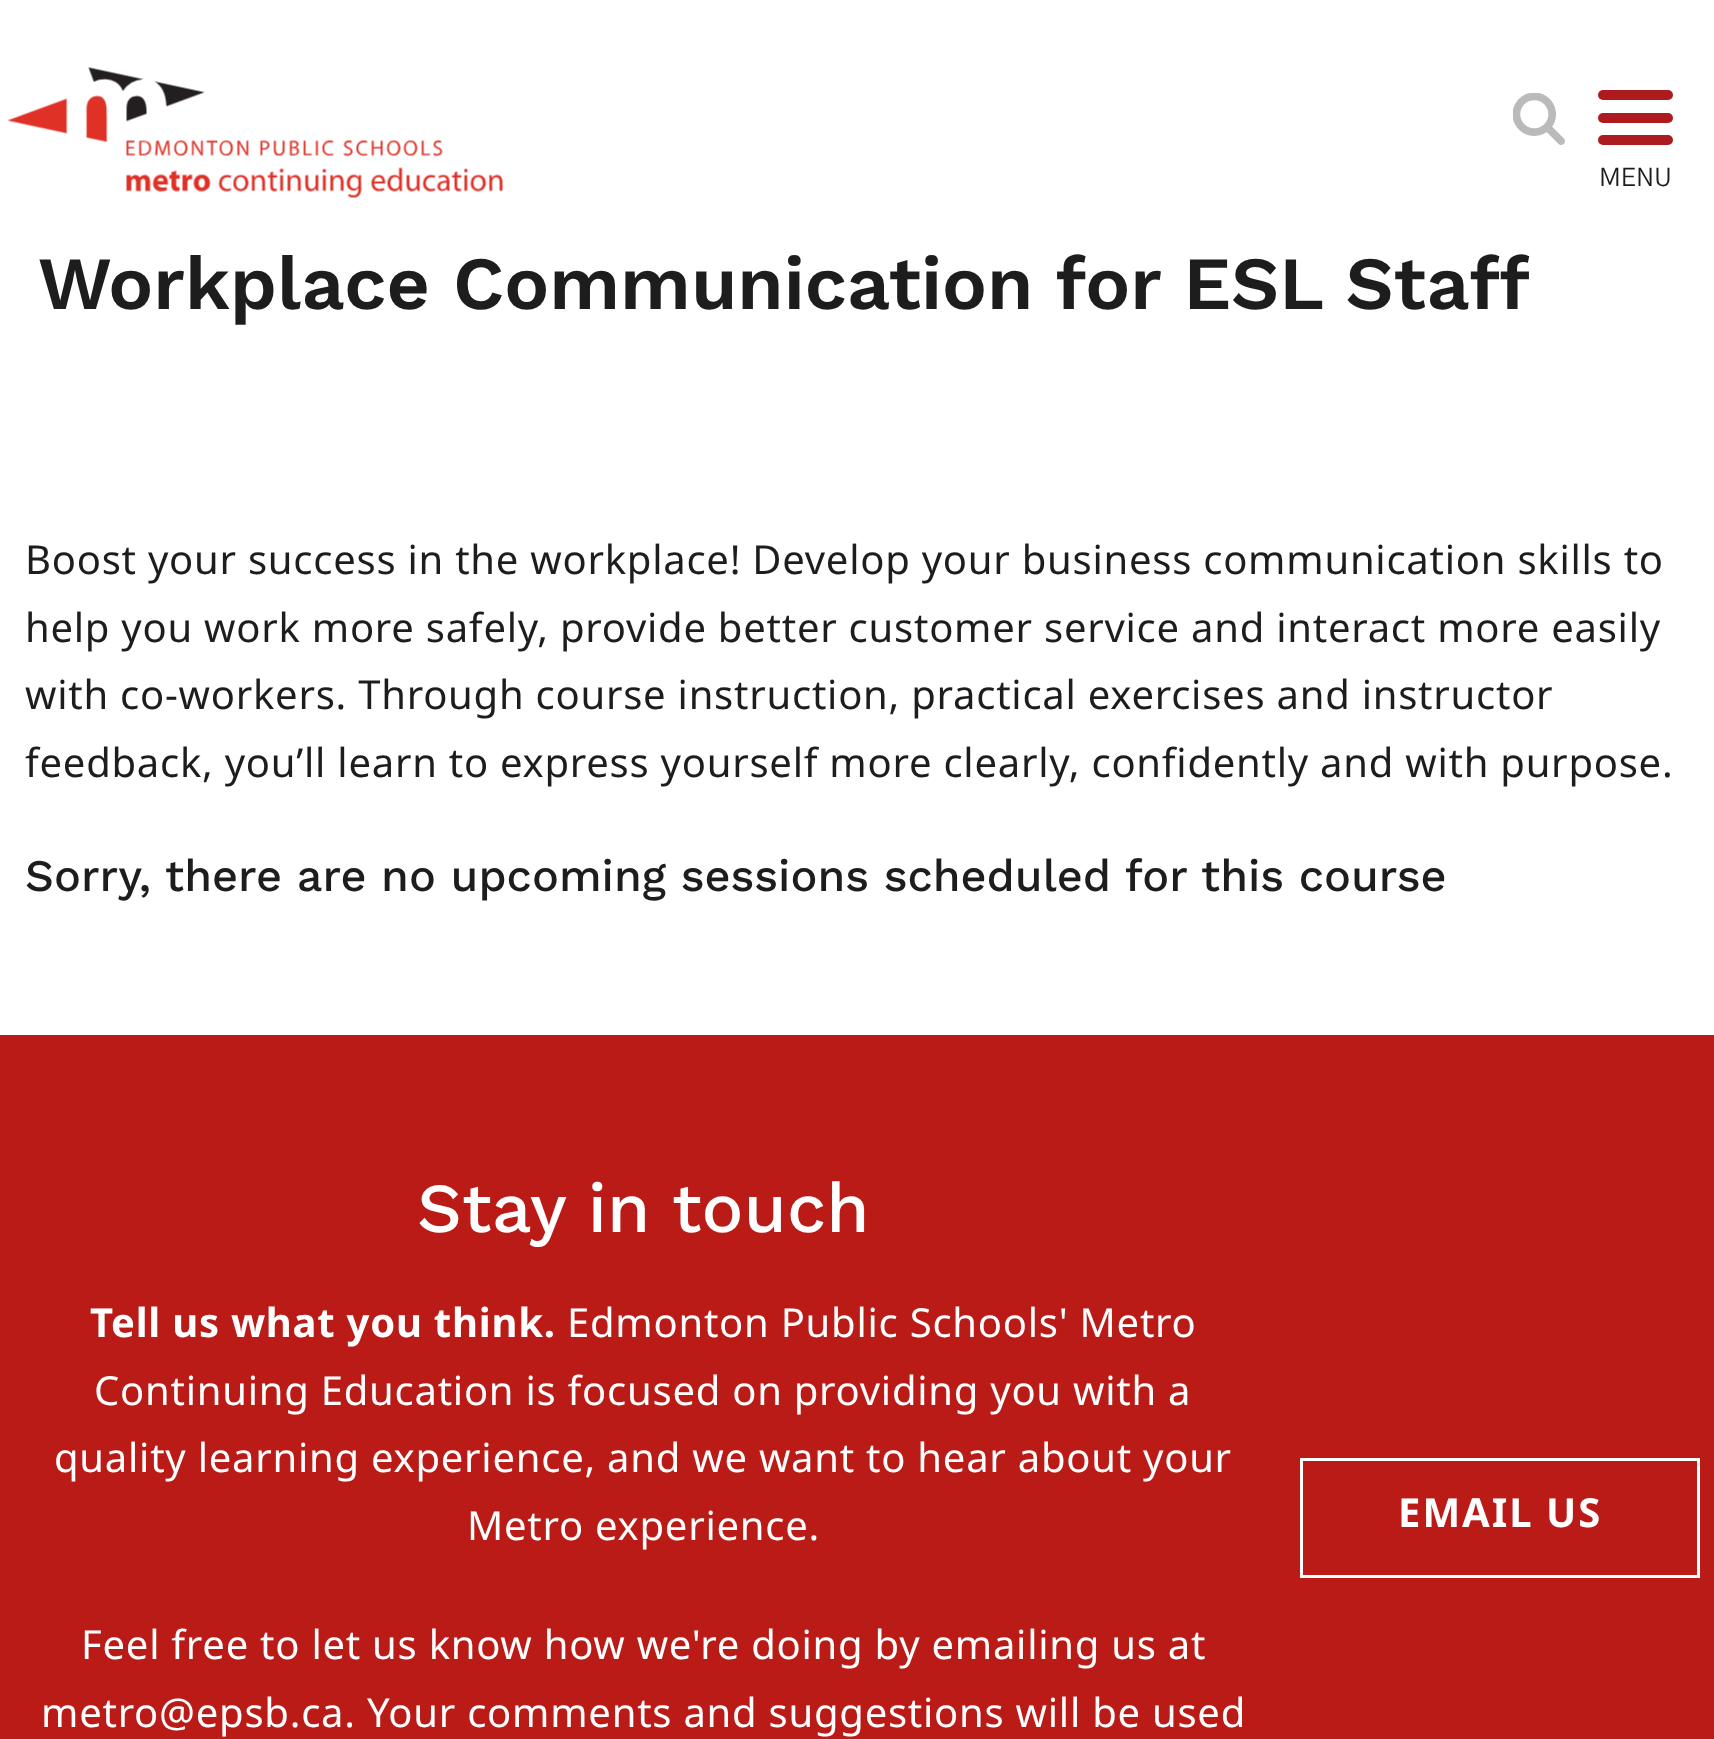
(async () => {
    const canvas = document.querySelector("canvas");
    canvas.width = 1714;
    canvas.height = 1739;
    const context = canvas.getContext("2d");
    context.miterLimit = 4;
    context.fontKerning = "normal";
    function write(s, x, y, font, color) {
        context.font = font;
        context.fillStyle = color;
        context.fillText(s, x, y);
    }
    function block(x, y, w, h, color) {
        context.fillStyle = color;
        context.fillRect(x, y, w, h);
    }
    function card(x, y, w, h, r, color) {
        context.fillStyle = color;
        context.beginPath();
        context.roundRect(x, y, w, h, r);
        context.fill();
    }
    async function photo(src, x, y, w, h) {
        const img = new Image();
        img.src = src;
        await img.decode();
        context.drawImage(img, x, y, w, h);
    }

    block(0, 0, 1714, 1739, "rgb(255, 255, 255)");
    await photo("media/1.png", 7, 67, 496, 131);
    await photo("media/2.png", 1513, 93, 52, 52);
    card(1598, 90, 75, 10, 5, "rgb(174, 27, 31)");
    card(1598, 113, 75, 10, 5, "rgb(174, 27, 31)");
    card(1598, 135, 75, 10, 5, "rgb(174, 27, 31)");
    write("MENU", 1599, 186, "25px 'Gothic A1'", "rgb(29, 29, 29)");
    write("Workplace Communication for ESL Staff", 38, 309, "600 75px Work Sans", "rgb(29, 29, 29)");
    context.letterSpacing = "0.75px";
    write("Boost your success in the workplace! Develop your business communication skills to", 25, 574, "40px Noto Sans", "rgb(29, 29, 29)");
    write("help you work more safely, provide better customer service and interact more easily", 25, 642, "40px Noto Sans", "rgb(29, 29, 29)");
    write("with co-workers. Through course instruction, practical exercises and instructor", 25, 709, "40px Noto Sans", "rgb(29, 29, 29)");
    write("feedback, you’ll learn to express yourself more clearly, confidently and with purpose.", 25, 777, "40px Noto Sans", "rgb(29, 29, 29)");
    context.letterSpacing = "0px";
    write("Sorry, there are no upcoming sessions scheduled for this course", 25, 891, "500 45px Work Sans", "rgb(29, 29, 29)");
    block(0, 1035, 1714, 704, "rgb(186, 27, 22)");
    write("Stay in touch", 417, 1232, "500 70px Work Sans", "rgb(255, 255, 255)");
    context.letterSpacing = "0.75px";
    write("Tell us what you think.", 90, 1337, "bold 40px Noto Sans", "rgb(255, 255, 255)");
    write("Edmonton Public Schools' Metro", 567, 1337, "40px Noto Sans", "rgb(255, 255, 255)");
    write("Continuing Education is focused on providing you with a", 94, 1405, "40px Noto Sans", "rgb(255, 255, 255)");
    write("quality learning experience, and we want to hear about your", 54, 1472, "40px Noto Sans", "rgb(255, 255, 255)");
    write("Metro experience.", 467, 1540, "40px Noto Sans", "rgb(255, 255, 255)");
    write("Feel free to let us know how we're doing by emailing us at", 81, 1659, "40px Noto Sans", "rgb(255, 255, 255)");
    write("metro@epsb.ca. Your comments and suggestions will be used", 41, 1727, "40px Noto Sans", "rgb(255, 255, 255)");
    context.strokeStyle = "rgb(255, 255, 255)";
    context.lineWidth = 3;
    context.strokeRect(1301.5, 1459.5, 397, 117);
    context.letterSpacing = "2px";
    write("EMAIL US", 1398, 1527, "bold 40px Noto Sans", "rgb(255, 255, 255)");
})();
